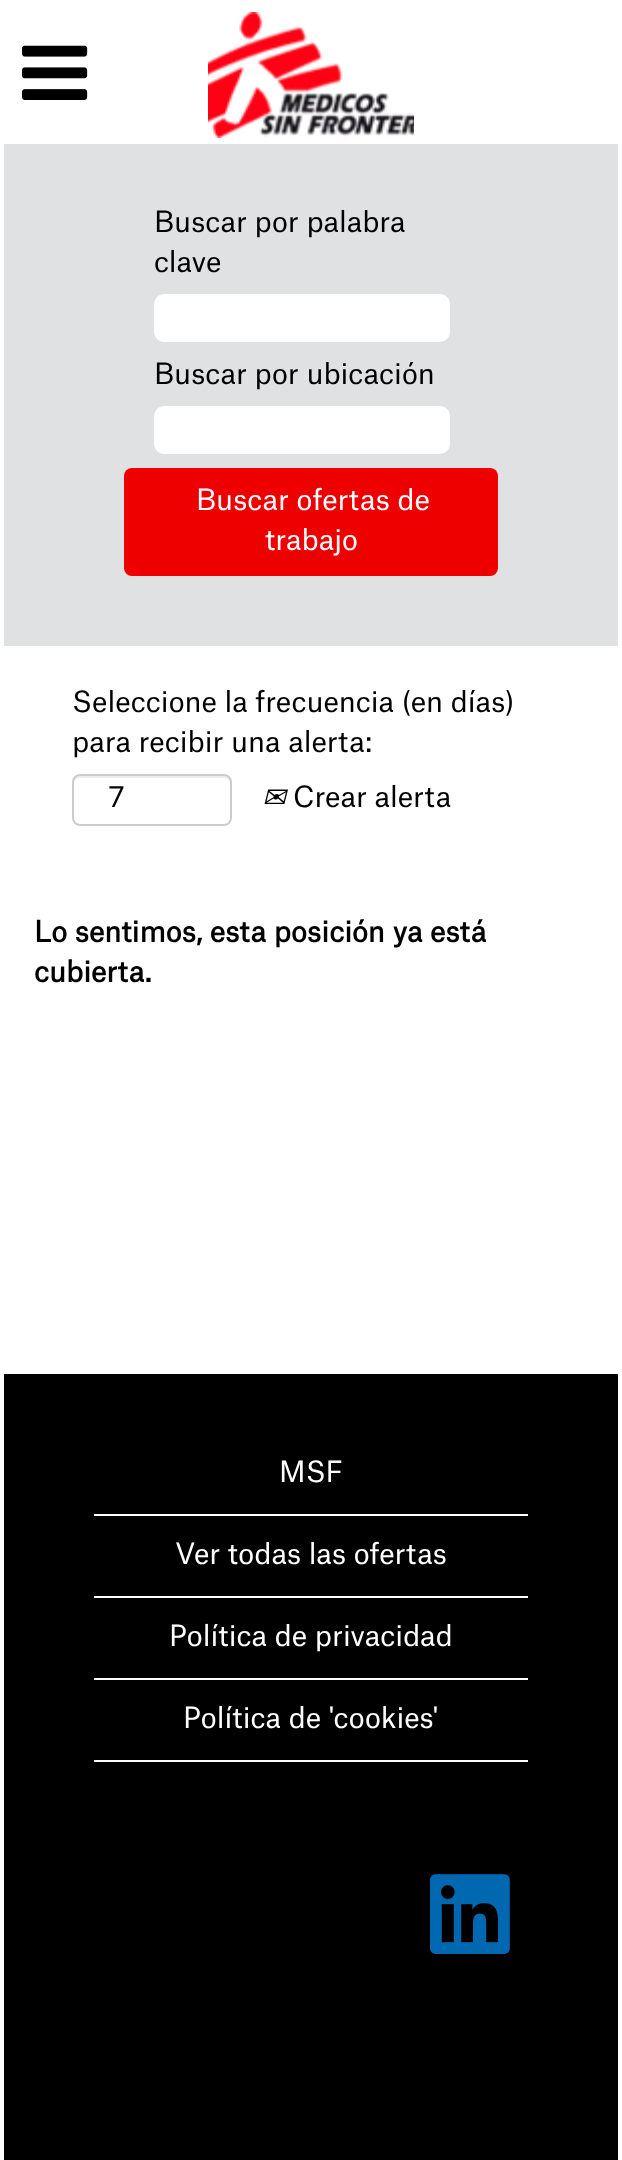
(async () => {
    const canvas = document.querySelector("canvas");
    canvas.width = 622;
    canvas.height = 2160;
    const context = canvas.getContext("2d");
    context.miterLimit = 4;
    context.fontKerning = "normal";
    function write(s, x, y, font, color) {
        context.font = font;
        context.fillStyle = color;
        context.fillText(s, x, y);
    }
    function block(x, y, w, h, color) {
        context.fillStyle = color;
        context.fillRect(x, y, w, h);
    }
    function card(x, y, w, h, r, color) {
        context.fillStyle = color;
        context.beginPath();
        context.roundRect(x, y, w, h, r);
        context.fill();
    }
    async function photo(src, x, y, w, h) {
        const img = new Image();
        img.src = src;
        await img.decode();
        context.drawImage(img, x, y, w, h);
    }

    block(0, 0, 622, 2160, "rgb(255, 255, 255)");
    await photo("media/1.png", 22, 45, 66, 55);
    await photo("media/2.png", 208, 12, 206, 126);
    block(4, 144, 614, 502, "rgb(224, 225, 226)");
    write("Buscar por palabra", 154, 232, "28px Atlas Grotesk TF", "rgb(0, 0, 0)");
    write("clave", 154, 272, "28px Atlas Grotesk TF", "rgb(0, 0, 0)");
    card(154, 294, 296, 48, 10, "rgb(255, 255, 255)");
    write("Buscar por ubicación", 154, 384, "28px Atlas Grotesk TF", "rgb(0, 0, 0)");
    card(154, 406, 296, 48, 10, "rgb(255, 255, 255)");
    card(124, 468, 374, 108, 8, "rgb(238, 0, 0)");
    write("Buscar ofertas de", 196, 510, "28px Atlas Grotesk TF", "rgb(255, 255, 255)");
    write("trabajo", 265, 550, "28px Atlas Grotesk TF", "rgb(255, 255, 255)");
    write("Seleccione la frecuencia (en días)", 72, 712, "28px Atlas Grotesk TF", "rgb(0, 0, 0)");
    write("para recibir una alerta:", 72, 752, "28px Atlas Grotesk TF", "rgb(0, 0, 0)");
    context.fillStyle = "rgb(236, 236, 236)";
    context.beginPath();
    context.moveTo(80, 778);
    context.lineTo(224, 778);
    context.bezierCurveTo(227, 778, 230, 781, 230, 784);
    context.lineTo(230, 782);
    context.bezierCurveTo(230, 779, 227, 776, 224, 776);
    context.lineTo(80, 776);
    context.bezierCurveTo(77, 776, 74, 779, 74, 782);
    context.lineTo(74, 784);
    context.bezierCurveTo(74, 781, 77, 778, 80, 778);
    context.closePath();
    context.fill();
    context.beginPath();
    context.roundRect(73, 775, 158, 50, 7);
    context.strokeStyle = "rgb(204, 204, 204)";
    context.lineWidth = 2;
    context.stroke();
    write("7", 108, 807, "28px Atlas Grotesk TF", "rgb(0, 0, 0)");
    write("✉", 262, 807, "italic 28px DejaVu Sans", "rgb(0, 0, 0)");
    write("Crear alerta", 293, 807, "28px Atlas Grotesk TF", "rgb(0, 0, 0)");
    write("Lo sentimos, esta posición ya está", 34, 942, "bold 28px Atlas Grotesk TF", "rgb(0, 0, 0)");
    write("cubierta.", 34, 982, "bold 28px Atlas Grotesk TF", "rgb(0, 0, 0)");
    block(4, 1374, 614, 786, "rgb(0, 0, 0)");
    block(94, 1514, 434, 2, "rgb(255, 255, 255)");
    write("MSF", 279, 1482, "28px Atlas Grotesk TF", "rgb(255, 255, 255)");
    block(94, 1596, 434, 2, "rgb(255, 255, 255)");
    write("Ver todas las ofertas", 175, 1564, "28px Atlas Grotesk TF", "rgb(255, 255, 255)");
    block(94, 1678, 434, 2, "rgb(255, 255, 255)");
    write("Política de privacidad", 169, 1646, "28px Atlas Grotesk TF", "rgb(255, 255, 255)");
    block(94, 1760, 434, 2, "rgb(255, 255, 255)");
    write("Política de 'cookies'", 183, 1728, "28px Atlas Grotesk TF", "rgb(255, 255, 255)");
    await photo("media/3.png", 430, 1874, 80, 80);
})();
